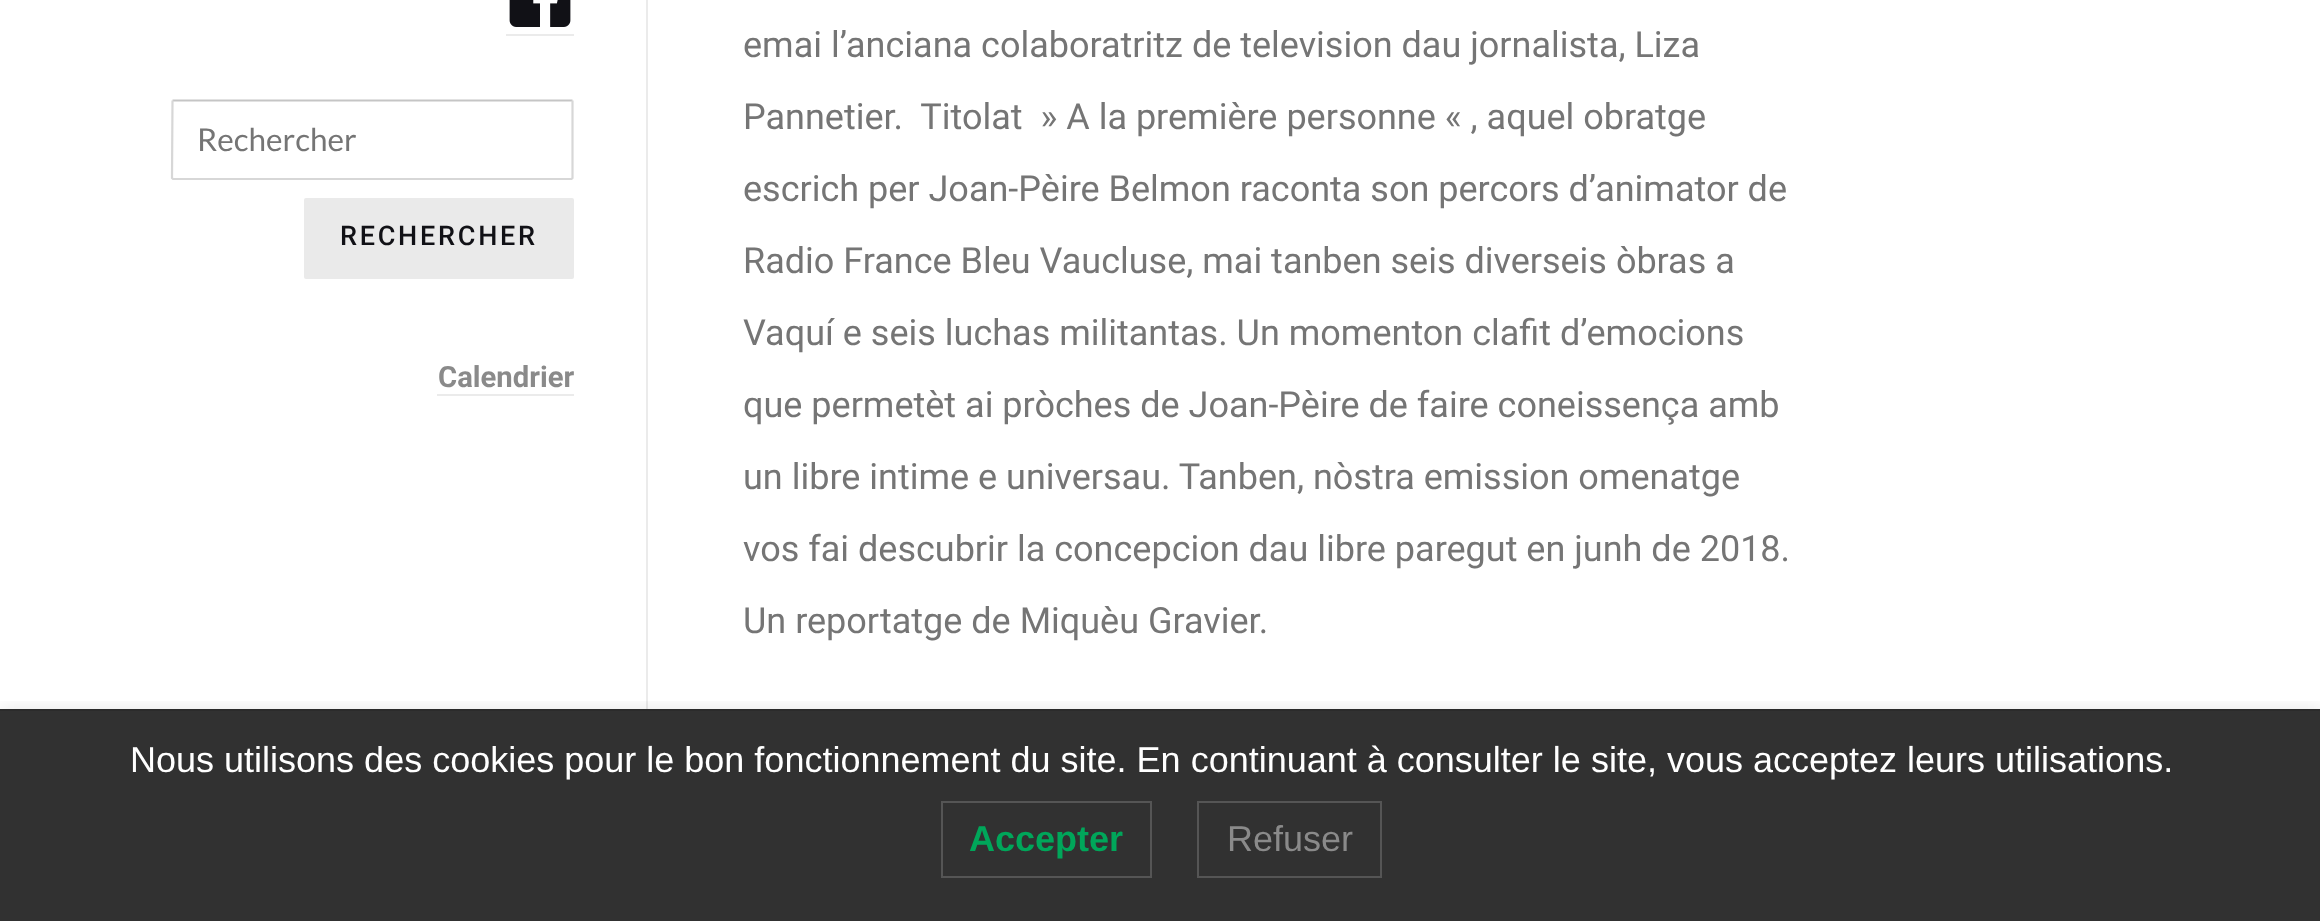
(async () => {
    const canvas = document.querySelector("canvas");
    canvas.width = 2320;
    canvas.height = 921;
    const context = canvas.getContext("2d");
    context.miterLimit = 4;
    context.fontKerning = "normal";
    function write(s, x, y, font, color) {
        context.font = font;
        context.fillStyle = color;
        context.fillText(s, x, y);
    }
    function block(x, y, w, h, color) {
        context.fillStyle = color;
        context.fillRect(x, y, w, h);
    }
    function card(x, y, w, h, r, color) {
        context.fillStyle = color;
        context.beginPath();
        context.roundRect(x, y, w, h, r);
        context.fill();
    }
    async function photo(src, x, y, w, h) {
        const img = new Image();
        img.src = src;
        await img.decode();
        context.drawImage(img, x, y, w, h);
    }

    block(0, 0, 2320, 921, "rgb(255, 255, 255)");
    block(0, 711, 2320, 210, "rgb(49, 49, 49)");
    block(646, 0, 2, 709, "rgb(235, 235, 235)");
    await photo("media/1.png", 509, 0, 62, 27);
    block(506, 34, 68, 2, "rgb(235, 235, 235)");
    context.beginPath();
    context.moveTo(172.5, 100.5);
    context.lineTo(572.5, 100.5);
    context.strokeStyle = "rgb(197, 197, 197)";
    context.lineWidth = 2.2;
    context.stroke();
    context.beginPath();
    context.moveTo(572.5, 100.5);
    context.lineTo(572.5, 178);
    context.lineTo(571.5, 179);
    context.lineTo(173, 179);
    context.lineTo(172, 178);
    context.lineTo(172.5, 100.5);
    context.strokeStyle = "rgb(215, 215, 215)";
    context.stroke();
    write("Rechercher", 197, 151, "31.5px Lato", "rgb(117, 117, 117)");
    card(304, 198, 270, 81, 2, "rgb(234, 234, 234)");
    context.letterSpacing = "2.75px";
    write("RECHERCHER", 340, 245, "500 27px Roboto", "rgb(17, 17, 22)");
    context.letterSpacing = "0px";
    write("Calendrier", 438, 387, "bold 29.25px Roboto", "rgb(138, 138, 138)");
    block(437, 394, 137, 2, "rgb(235, 235, 235)");
    write("emai l’anciana colaboratritz de television dau jornalista, Liza", 743, 57, "36px Roboto", "rgb(117, 117, 117)");
    write("Pannetier.  Titolat  » A la première personne « , aquel obratge", 743, 129, "36px Roboto", "rgb(117, 117, 117)");
    write("escrich per Joan-Pèire Belmon raconta son percors d’animator de", 743, 201, "36px Roboto", "rgb(117, 117, 117)");
    write("Radio France Bleu Vaucluse, mai tanben seis diverseis òbras a", 743, 273, "36px Roboto", "rgb(117, 117, 117)");
    write("Vaquí e seis luchas militantas. Un momenton clafit d’emocions", 743, 345, "36px Roboto", "rgb(117, 117, 117)");
    write("que permetèt ai pròches de Joan-Pèire de faire coneissença amb", 743, 417, "36px Roboto", "rgb(117, 117, 117)");
    write("un libre intime e universau. Tanben, nòstra emission omenatge", 743, 489, "36px Roboto", "rgb(117, 117, 117)");
    write("vos fai descubrir la concepcion dau libre paregut en junh de 2018.", 743, 561, "36px Roboto", "rgb(117, 117, 117)");
    write("Un reportatge de Miquèu Gravier.", 743, 633, "36px Roboto", "rgb(117, 117, 117)");
    context.save();
    context.beginPath();
    context.rect(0, 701, 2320, 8);
    context.clip();
    context.fillStyle = "rgba(0, 0, 0, 0.1)";
    context.filter = "blur(9px)";
    context.beginPath();
    context.rect(0, 709, 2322, 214);
    context.fill();
    context.filter = "none";
    context.restore();
    block(0, 709, 2320, 2, "rgb(43, 43, 43)");
    write("Nous utilisons des cookies pour le bon fonctionnement du site. En continuant à consulter le site, vous acceptez leurs utilisations.", 130, 772, "36px Liberation Sans", "rgb(255, 255, 255)");
    context.strokeStyle = "rgb(85, 85, 85)";
    context.lineWidth = 2;
    context.strokeRect(942, 802, 209, 75);
    write("Accepter", 969, 851, "bold 36px Liberation Sans", "rgb(0, 166, 90)");
    context.strokeRect(1198, 802, 183, 75);
    write("Refuser", 1227, 851, "36px Liberation Sans", "rgb(138, 138, 138)");
})();
